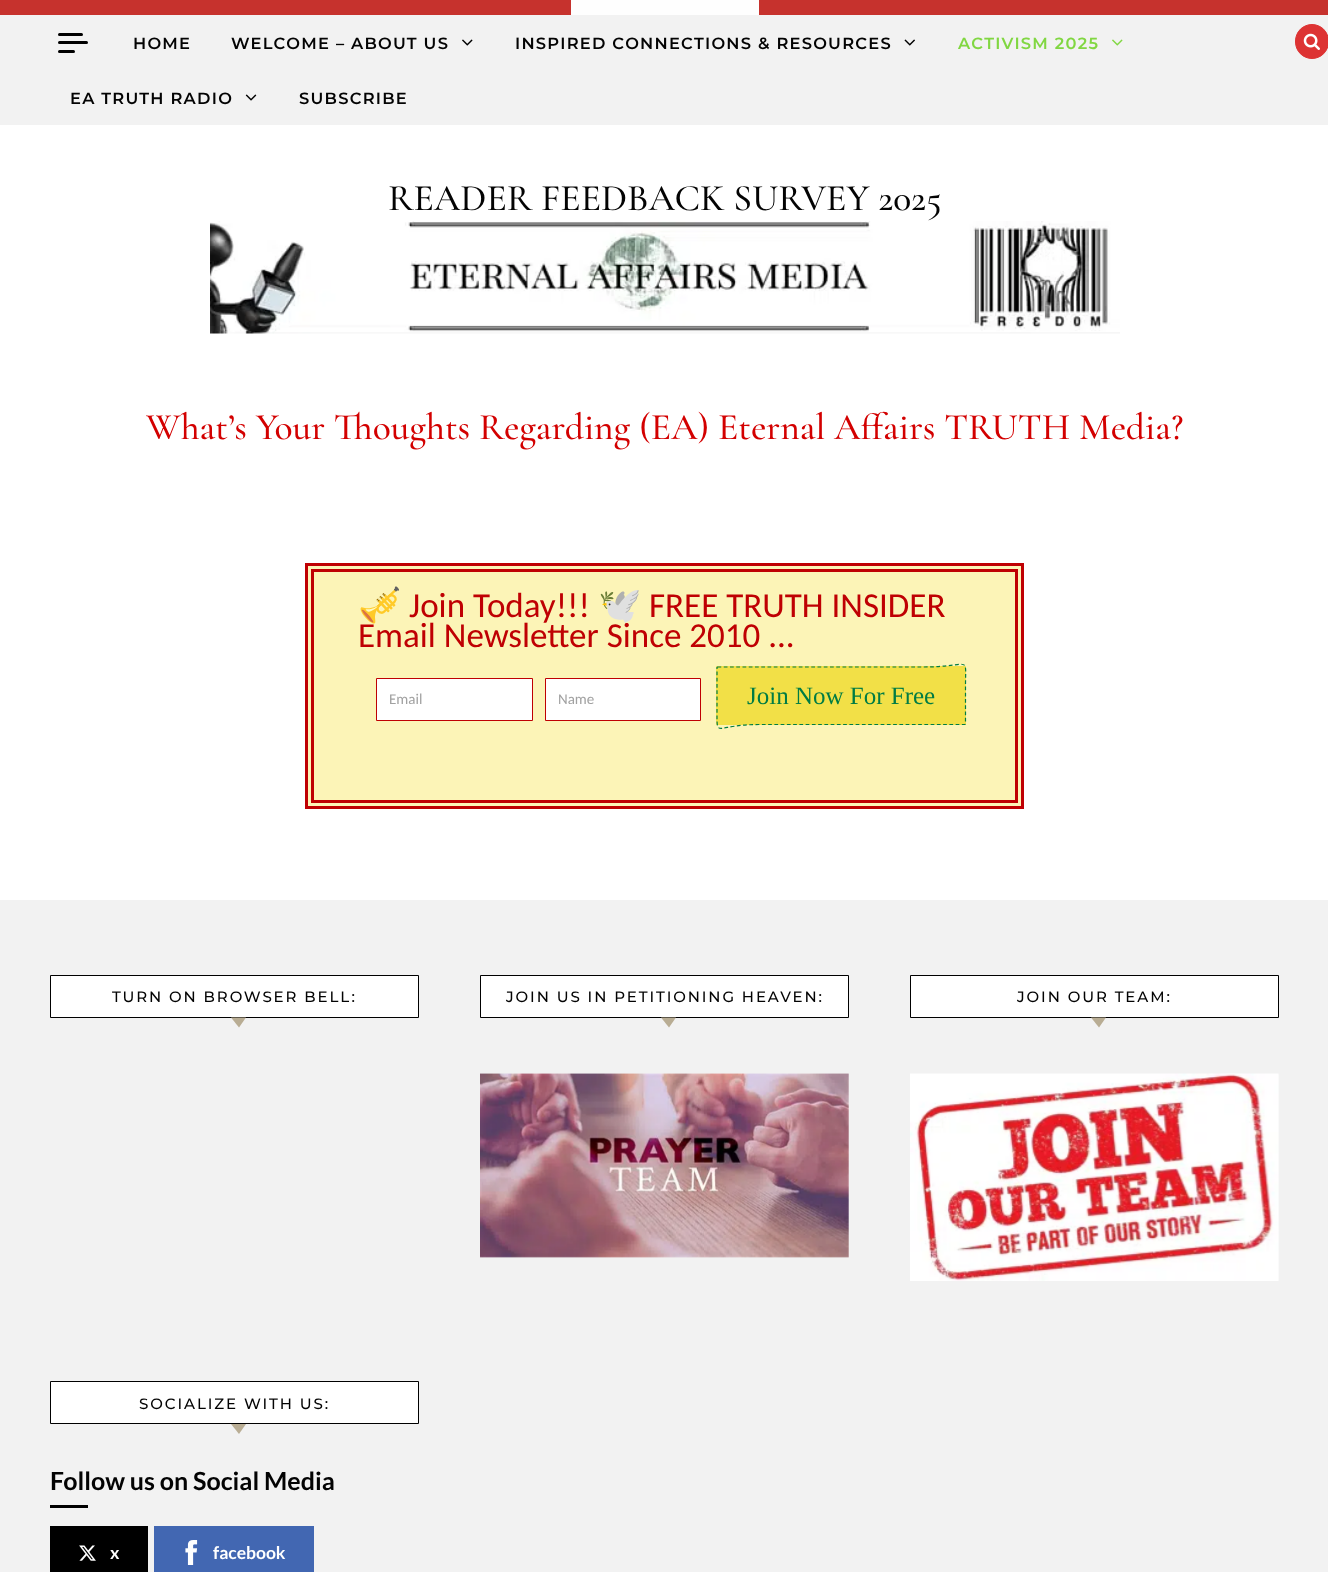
(async () => {
    const canvas = document.querySelector("canvas");
    canvas.width = 1328;
    canvas.height = 1572;
    const context = canvas.getContext("2d");
    context.miterLimit = 4;
    context.fontKerning = "normal";
    function write(s, x, y, font, color) {
        context.font = font;
        context.fillStyle = color;
        context.fillText(s, x, y);
    }
    function block(x, y, w, h, color) {
        context.fillStyle = color;
        context.fillRect(x, y, w, h);
    }
    function card(x, y, w, h, r, color) {
        context.fillStyle = color;
        context.beginPath();
        context.roundRect(x, y, w, h, r);
        context.fill();
    }
    async function photo(src, x, y, w, h) {
        const img = new Image();
        img.src = src;
        await img.decode();
        context.drawImage(img, x, y, w, h);
    }

    block(0, 0, 1328, 1572, "rgb(255, 255, 255)");
    block(0, 0, 1328, 15, "rgb(198, 50, 45)");
    block(571, 0, 188, 15, "rgb(254, 254, 254)");
    block(0, 15, 1328, 110, "rgb(242, 242, 242)");
    card(58, 33, 25, 3, 1.5, "rgb(0, 0, 0)");
    card(58, 41, 30, 3, 1.5, "rgb(0, 0, 0)");
    card(58, 50, 17, 3, 1.5, "rgb(0, 0, 0)");
    context.fillStyle = "rgb(221, 51, 51)";
    context.beginPath();
    context.roundRect(1295.5, 24.5, 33, 34, 16.5);
    context.fill();
    context.strokeStyle = "rgb(221, 51, 51)";
    context.stroke();
    await photo("media/1.png", 1303, 33, 17, 17);
    context.letterSpacing = "1.25px";
    write("HOME", 133, 49, "100 16.25px 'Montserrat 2'", "rgb(3, 3, 3)");
    write("WELCOME – ABOUT US", 231, 49, "100 16.25px 'Montserrat 2'", "rgb(3, 3, 3)");
    await photo("media/2.png", 462, 39, 11, 7);
    write("INSPIRED CONNECTIONS & RESOURCES", 515, 49, "100 16.25px 'Montserrat 2'", "rgb(3, 3, 3)");
    await photo("media/3.png", 904, 39, 11, 7);
    write("ACTIVISM 2025", 958, 49, "100 16.25px 'Montserrat 2'", "rgb(129, 215, 66)");
    await photo("media/4.png", 1112, 39, 11, 7);
    write("EA TRUTH RADIO", 70, 104, "100 16.25px 'Montserrat 2'", "rgb(3, 3, 3)");
    await photo("media/5.png", 245, 94, 12, 7);
    write("SUBSCRIBE", 299, 104, "100 16.25px 'Montserrat 2'", "rgb(3, 3, 3)");
    context.letterSpacing = "0px";
    write("READER FEEDBACK SURVEY 2025", 388, 210, "500 37.5px Cormorant Garamond", "rgb(3, 3, 3)");
    await photo("media/6.png", 210, 221, 910, 113);
    write("What’s Your Thoughts Regarding (EA) Eternal Affairs TRUTH Media?", 146, 439, "500 37.5px Cormorant Garamond", "rgb(211, 0, 0)");
    context.fillStyle = "rgb(252, 244, 183)";
    context.beginPath();
    context.rect(306.5, 564.5, 716, 243);
    context.fill();
    context.strokeStyle = "rgb(191, 0, 3)";
    context.lineWidth = 3;
    context.stroke();
    context.strokeRect(312.5, 570.5, 704, 231);
    write("🎺", 358, 617, "35px Noto Color Emoji", "rgb(191, 0, 3)");
    write("Join Today!!!", 409, 617, "35px Carlito", "rgb(191, 0, 3)");
    write("🕊️", 598, 617, "35px Noto Color Emoji", "rgb(191, 0, 3)");
    write("FREE TRUTH INSIDER", 649, 617, "35px Carlito", "rgb(191, 0, 3)");
    write("Email Newsletter Since 2010 ...", 358, 647, "35px Carlito", "rgb(191, 0, 3)");
    context.fillStyle = "rgb(255, 255, 255)";
    context.beginPath();
    context.rect(376.5, 678.5, 156, 42);
    context.fill();
    context.lineWidth = 1;
    context.stroke();
    write("Email", 389, 704, "15px Carlito", "rgb(161, 161, 161)");
    context.fillStyle = "rgb(255, 255, 255)";
    context.beginPath();
    context.rect(545.5, 678.5, 155, 42);
    context.fill();
    context.stroke();
    write("Name", 558, 704, "15px Carlito", "rgb(161, 161, 161)");
    card(716, 666, 250, 59, 1, "rgb(242, 224, 71)");
    context.beginPath();
    context.moveTo(717.5, 667);
    context.lineTo(924, 667);
    context.bezierCurveTo(971, 667, 965.5, 653.5, 965.5, 686);
    context.lineTo(965.5, 724);
    context.lineTo(965, 724.5);
    context.lineTo(759, 724.5);
    context.bezierCurveTo(716.5, 724.5, 717, 738, 717, 714.5);
    context.lineTo(717, 667.5);
    context.closePath();
    context.strokeStyle = "rgb(0, 124, 68)";
    context.lineWidth = 1.2;
    context.setLineDash([3.75, 2.5]);
    context.stroke();
    write("Join Now For Free", 747, 704, "25px Liberation Serif", "rgb(0, 124, 68)");
    block(0, 900, 1328, 672, "rgb(242, 242, 242)");
    context.fillStyle = "rgb(255, 255, 255)";
    context.beginPath();
    context.rect(50.5, 975.5, 368, 42);
    context.fill();
    context.strokeStyle = "rgb(0, 0, 0)";
    context.lineWidth = 1;
    context.setLineDash([]);
    context.stroke();
    context.letterSpacing = "1.9px";
    write("TURN ON BROWSER BELL:", 112, 1002, "100 15px Montserrat", "rgb(3, 3, 3)");
    context.fillStyle = "rgb(185, 173, 148)";
    context.beginPath();
    context.moveTo(231, 1017.5);
    context.lineTo(246, 1017.5);
    context.lineTo(239, 1027.5);
    context.closePath();
    context.fill();
    context.fillStyle = "rgb(255, 255, 255)";
    context.beginPath();
    context.rect(480.5, 975.5, 368, 42);
    context.fill();
    context.stroke();
    write("JOIN US IN PETITIONING HEAVEN:", 506, 1002, "100 15px Montserrat", "rgb(3, 3, 3)");
    context.fillStyle = "rgb(185, 173, 148)";
    context.beginPath();
    context.moveTo(661, 1017.5);
    context.lineTo(676, 1017.5);
    context.lineTo(669, 1027.5);
    context.closePath();
    context.fill();
    await photo("media/7.png", 480, 1073, 369, 185);
    context.fillStyle = "rgb(255, 255, 255)";
    context.beginPath();
    context.rect(910.5, 975.5, 368, 42);
    context.fill();
    context.stroke();
    write("JOIN OUR TEAM:", 1017, 1002, "100 15px Montserrat", "rgb(3, 3, 3)");
    context.fillStyle = "rgb(185, 173, 148)";
    context.beginPath();
    context.moveTo(1091, 1017.5);
    context.lineTo(1106, 1017.5);
    context.lineTo(1099, 1027.5);
    context.closePath();
    context.fill();
    await photo("media/8.png", 910, 1073, 369, 208);
    context.fillStyle = "rgb(255, 255, 255)";
    context.beginPath();
    context.rect(50.5, 1381.5, 368, 42);
    context.fill();
    context.stroke();
    write("SOCIALIZE WITH US:", 139, 1409, "100 15px Montserrat", "rgb(3, 3, 3)");
    context.fillStyle = "rgb(185, 173, 148)";
    context.beginPath();
    context.moveTo(231, 1424);
    context.lineTo(246, 1424);
    context.lineTo(239, 1434);
    context.closePath();
    context.fill();
    context.letterSpacing = "0px";
    write("Follow us on Social Media", 50, 1490, "bold 25px Lato", "rgb(3, 3, 3)");
    block(50, 1505, 38, 3, "rgb(0, 0, 0)");
    block(50, 1526, 98, 46, "rgb(0, 0, 0)");
    await photo("media/9.png", 79, 1545, 17, 16);
    write("x", 110, 1559, "bold 17.5px Lato", "rgb(255, 255, 255)");
    block(154, 1526, 160, 46, "rgb(66, 103, 178)");
    await photo("media/10.png", 185, 1540, 13, 25);
    write("facebook", 213, 1559, "bold 17.5px Lato", "rgb(255, 255, 255)");
})();
